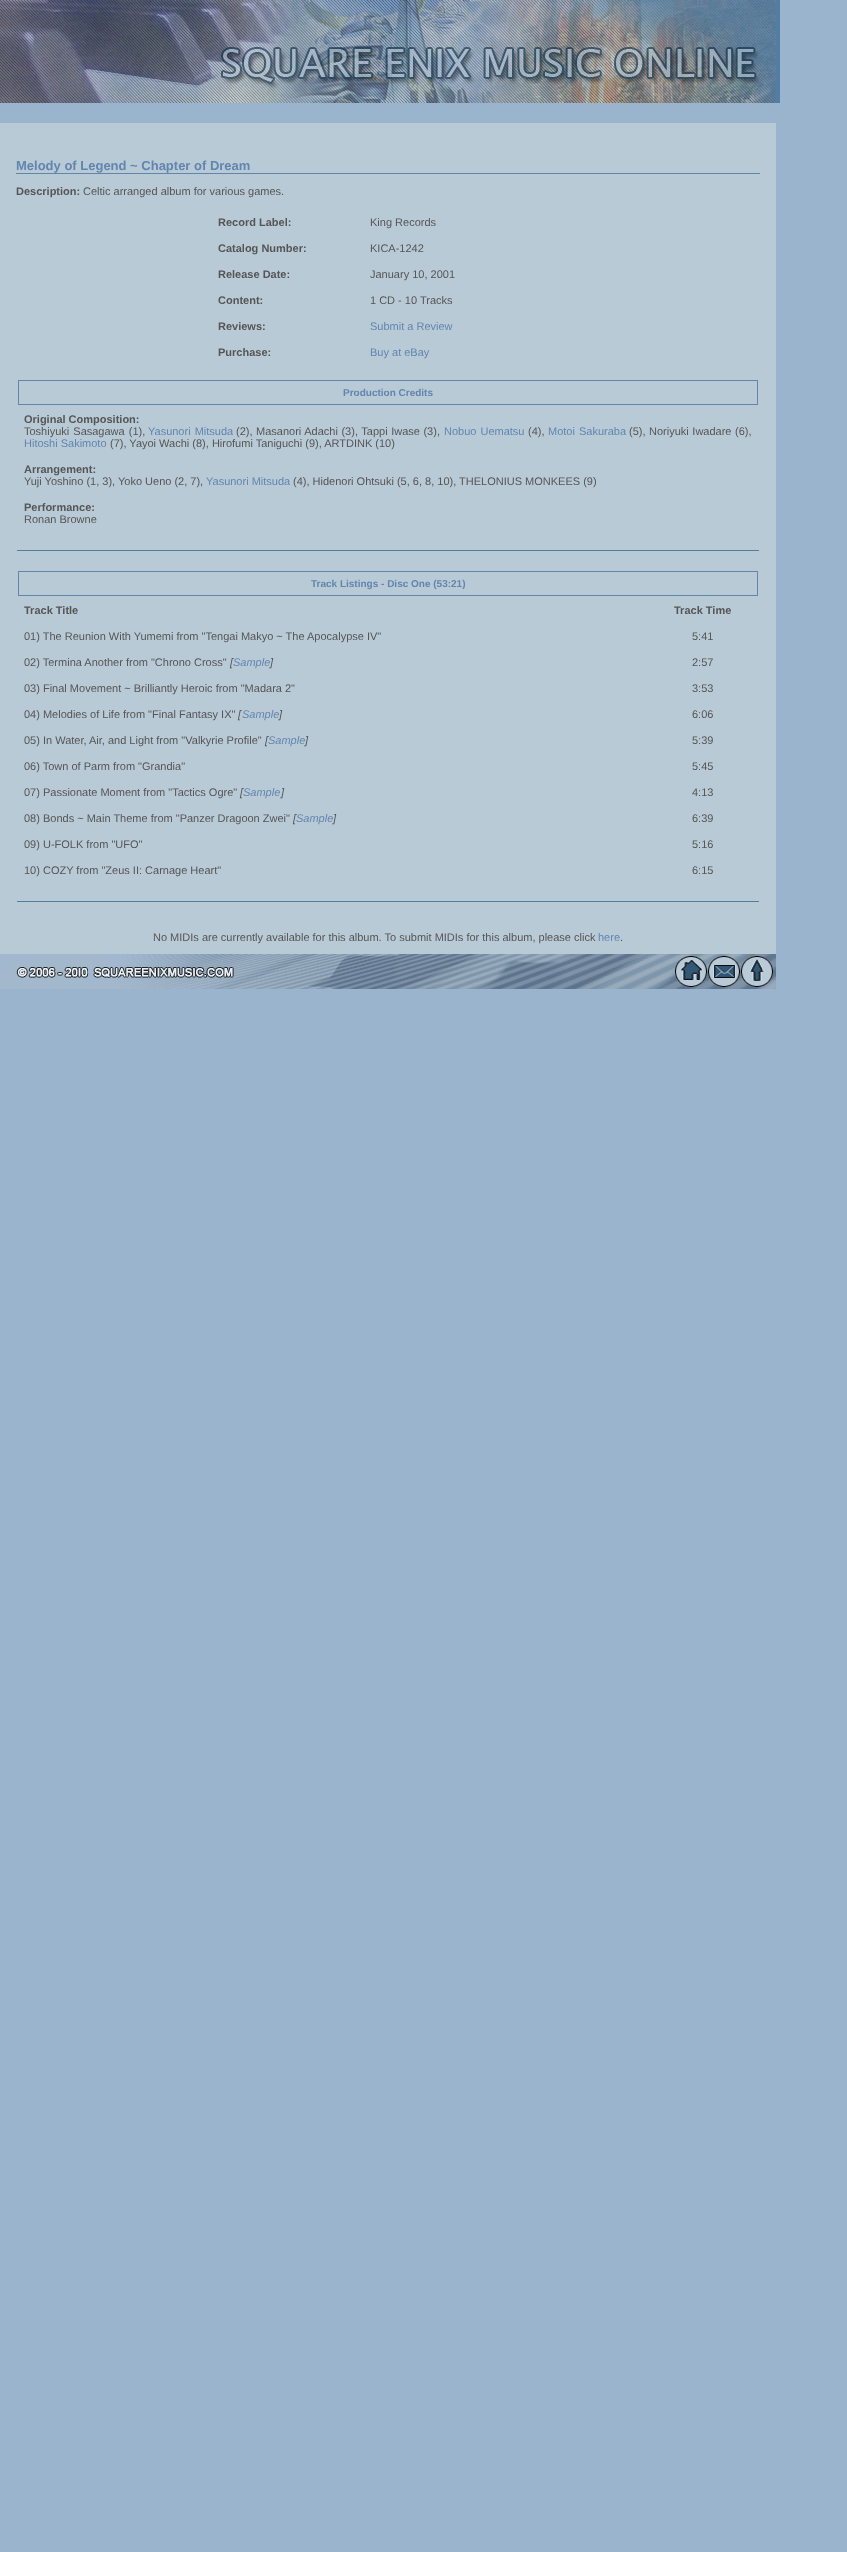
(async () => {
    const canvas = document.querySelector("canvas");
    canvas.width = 847;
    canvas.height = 2552;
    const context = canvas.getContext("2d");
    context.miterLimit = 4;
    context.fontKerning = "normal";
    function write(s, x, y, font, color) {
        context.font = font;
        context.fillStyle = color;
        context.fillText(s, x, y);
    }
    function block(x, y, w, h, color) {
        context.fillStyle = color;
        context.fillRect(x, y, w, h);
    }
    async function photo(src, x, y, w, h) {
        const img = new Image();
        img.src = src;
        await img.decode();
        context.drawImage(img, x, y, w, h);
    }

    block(0, 0, 847, 2552, "rgb(155, 180, 205)");
    await photo("media/1.png", 0, 0, 780, 103);
    block(0, 123, 776, 12, "rgb(185, 202, 215)");
    block(0, 135, 776, 819, "rgb(185, 202, 215)");
    block(16, 173, 744, 1, "rgb(98, 133, 174)");
    write("Melody of Legend ~ Chapter of Dream", 16, 170, "bold 13px Liberation Sans", "rgb(98, 133, 174)");
    write("Description:", 16, 195, "bold 11px Liberation Sans", "rgb(85, 85, 85)");
    write("Celtic arranged album for various games.", 83, 195, "11px Liberation Sans", "rgb(85, 85, 85)");
    write("Record Label:", 218, 226, "bold 11px Liberation Sans", "rgb(85, 85, 85)");
    write("King Records", 370, 226, "11px Liberation Sans", "rgb(85, 85, 85)");
    write("Catalog Number:", 218, 252, "bold 11px Liberation Sans", "rgb(85, 85, 85)");
    write("KICA-1242", 370, 252, "11px Liberation Sans", "rgb(85, 85, 85)");
    write("Release Date:", 218, 278, "bold 11px Liberation Sans", "rgb(85, 85, 85)");
    write("January 10, 2001", 370, 278, "11px Liberation Sans", "rgb(85, 85, 85)");
    write("Content:", 218, 304, "bold 11px Liberation Sans", "rgb(85, 85, 85)");
    write("1 CD - 10 Tracks", 370, 304, "11px Liberation Sans", "rgb(85, 85, 85)");
    write("Reviews:", 218, 330, "bold 11px Liberation Sans", "rgb(85, 85, 85)");
    write("Submit a Review", 370, 330, "11px Liberation Sans", "rgb(98, 133, 174)");
    write("Purchase:", 218, 356, "bold 11px Liberation Sans", "rgb(85, 85, 85)");
    write("Buy at eBay", 370, 356, "11px Liberation Sans", "rgb(98, 133, 174)");
    context.strokeStyle = "rgb(98, 133, 174)";
    context.strokeRect(18.5, 380.5, 739, 24);
    write("Production Credits", 343, 396, "bold 10px Liberation Sans", "rgb(98, 133, 174)");
    write("Original Composition:", 24, 423, "bold 11px Liberation Sans", "rgb(85, 85, 85)");
    context.wordSpacing = "1px";
    write("Toshiyuki Sasagawa (1),", 24, 435, "11px Liberation Sans", "rgb(85, 85, 85)");
    write("Yasunori Mitsuda", 148, 435, "11px Liberation Sans", "rgb(98, 133, 174)");
    context.wordSpacing = "0.5px";
    write("(2), Masanori Adachi (3), Tappi Iwase (3),", 236, 435, "11px Liberation Sans", "rgb(85, 85, 85)");
    context.wordSpacing = "1px";
    write("Nobuo Uematsu", 444, 435, "11px Liberation Sans", "rgb(98, 133, 174)");
    context.wordSpacing = "0px";
    write("(4),", 528, 435, "11px Liberation Sans", "rgb(85, 85, 85)");
    context.wordSpacing = "1px";
    write("Motoi Sakuraba", 548, 435, "11px Liberation Sans", "rgb(98, 133, 174)");
    context.wordSpacing = "0.5px";
    write("(5), Noriyuki Iwadare (6),", 629, 435, "11px Liberation Sans", "rgb(85, 85, 85)");
    context.wordSpacing = "0px";
    write("Hitoshi Sakimoto", 24, 447, "11px Liberation Sans", "rgb(98, 133, 174)");
    write("(7), Yayoi Wachi (8), Hirofumi Taniguchi (9), ARTDINK (10)", 110, 447, "11px Liberation Sans", "rgb(85, 85, 85)");
    write("Arrangement:", 24, 473, "bold 11px Liberation Sans", "rgb(85, 85, 85)");
    write("Yuji Yoshino (1, 3), Yoko Ueno (2, 7),", 24, 485, "11px Liberation Sans", "rgb(85, 85, 85)");
    write("Yasunori Mitsuda", 206, 485, "11px Liberation Sans", "rgb(98, 133, 174)");
    write("(4), Hidenori Ohtsuki (5, 6, 8, 10), THELONIUS MONKEES (9)", 293, 485, "11px Liberation Sans", "rgb(85, 85, 85)");
    write("Performance:", 24, 511, "bold 11px Liberation Sans", "rgb(85, 85, 85)");
    write("Ronan Browne", 24, 523, "11px Liberation Sans", "rgb(85, 85, 85)");
    block(17, 550, 742, 1, "rgb(83, 126, 160)");
    context.strokeRect(18.5, 571.5, 739, 24);
    write("Track Listings - Disc One (53:21)", 311, 587, "bold 10px Liberation Sans", "rgb(98, 133, 174)");
    write("Track Title", 24, 614, "bold 11px Liberation Sans", "rgb(85, 85, 85)");
    write("Track Time", 674, 614, "bold 11px Liberation Sans", "rgb(85, 85, 85)");
    write("01) The Reunion With Yumemi from \"Tengai Makyo ~ The Apocalypse IV\"", 24, 640, "11px Liberation Sans", "rgb(85, 85, 85)");
    write("5:41", 692, 640, "11px Liberation Sans", "rgb(85, 85, 85)");
    write("02) Termina Another from \"Chrono Cross\"", 24, 666, "11px Liberation Sans", "rgb(85, 85, 85)");
    write("[", 230, 666, "italic 11px Liberation Sans", "rgb(85, 85, 85)");
    write("Sample", 233, 666, "italic 11px Liberation Sans", "rgb(98, 133, 174)");
    write("]", 270, 666, "italic 11px Liberation Sans", "rgb(85, 85, 85)");
    write("2:57", 692, 666, "11px Liberation Sans", "rgb(85, 85, 85)");
    write("03) Final Movement ~ Brilliantly Heroic from \"Madara 2\"", 24, 692, "11px Liberation Sans", "rgb(85, 85, 85)");
    write("3:53", 692, 692, "11px Liberation Sans", "rgb(85, 85, 85)");
    write("04) Melodies of Life from \"Final Fantasy IX\"", 24, 718, "11px Liberation Sans", "rgb(85, 85, 85)");
    write("[", 238, 718, "italic 11px Liberation Sans", "rgb(85, 85, 85)");
    write("Sample", 242, 718, "italic 11px Liberation Sans", "rgb(98, 133, 174)");
    write("]", 279, 718, "italic 11px Liberation Sans", "rgb(85, 85, 85)");
    write("6:06", 692, 718, "11px Liberation Sans", "rgb(85, 85, 85)");
    write("05) In Water, Air, and Light from \"Valkyrie Profile\"", 24, 744, "11px Liberation Sans", "rgb(85, 85, 85)");
    write("[", 265, 744, "italic 11px Liberation Sans", "rgb(85, 85, 85)");
    write("Sample", 268, 744, "italic 11px Liberation Sans", "rgb(98, 133, 174)");
    write("]", 305, 744, "italic 11px Liberation Sans", "rgb(85, 85, 85)");
    write("5:39", 692, 744, "11px Liberation Sans", "rgb(85, 85, 85)");
    write("06) Town of Parm from \"Grandia\"", 24, 770, "11px Liberation Sans", "rgb(85, 85, 85)");
    write("5:45", 692, 770, "11px Liberation Sans", "rgb(85, 85, 85)");
    write("07) Passionate Moment from \"Tactics Ogre\"", 24, 796, "11px Liberation Sans", "rgb(85, 85, 85)");
    write("[", 240, 796, "italic 11px Liberation Sans", "rgb(85, 85, 85)");
    write("Sample", 243, 796, "italic 11px Liberation Sans", "rgb(98, 133, 174)");
    write("]", 281, 796, "italic 11px Liberation Sans", "rgb(85, 85, 85)");
    write("4:13", 692, 796, "11px Liberation Sans", "rgb(85, 85, 85)");
    write("08) Bonds ~ Main Theme from \"Panzer Dragoon Zwei\"", 24, 822, "11px Liberation Sans", "rgb(85, 85, 85)");
    write("[", 293, 822, "italic 11px Liberation Sans", "rgb(85, 85, 85)");
    write("Sample", 296, 822, "italic 11px Liberation Sans", "rgb(98, 133, 174)");
    write("]", 333, 822, "italic 11px Liberation Sans", "rgb(85, 85, 85)");
    write("6:39", 692, 822, "11px Liberation Sans", "rgb(85, 85, 85)");
    write("09) U-FOLK from \"UFO\"", 24, 848, "11px Liberation Sans", "rgb(85, 85, 85)");
    write("5:16", 692, 848, "11px Liberation Sans", "rgb(85, 85, 85)");
    write("10) COZY from \"Zeus II: Carnage Heart\"", 24, 874, "11px Liberation Sans", "rgb(85, 85, 85)");
    write("6:15", 692, 874, "11px Liberation Sans", "rgb(85, 85, 85)");
    block(17, 901, 742, 1, "rgb(83, 126, 160)");
    write("No MIDIs are currently available for this album. To submit MIDIs for this album, please click", 153, 941, "11px Liberation Sans", "rgb(85, 85, 85)");
    write("here", 598, 941, "11px Liberation Sans", "rgb(98, 133, 174)");
    write(".", 620, 941, "11px Liberation Sans", "rgb(85, 85, 85)");
    await photo("media/2.png", 0, 954, 776, 35);
})();
